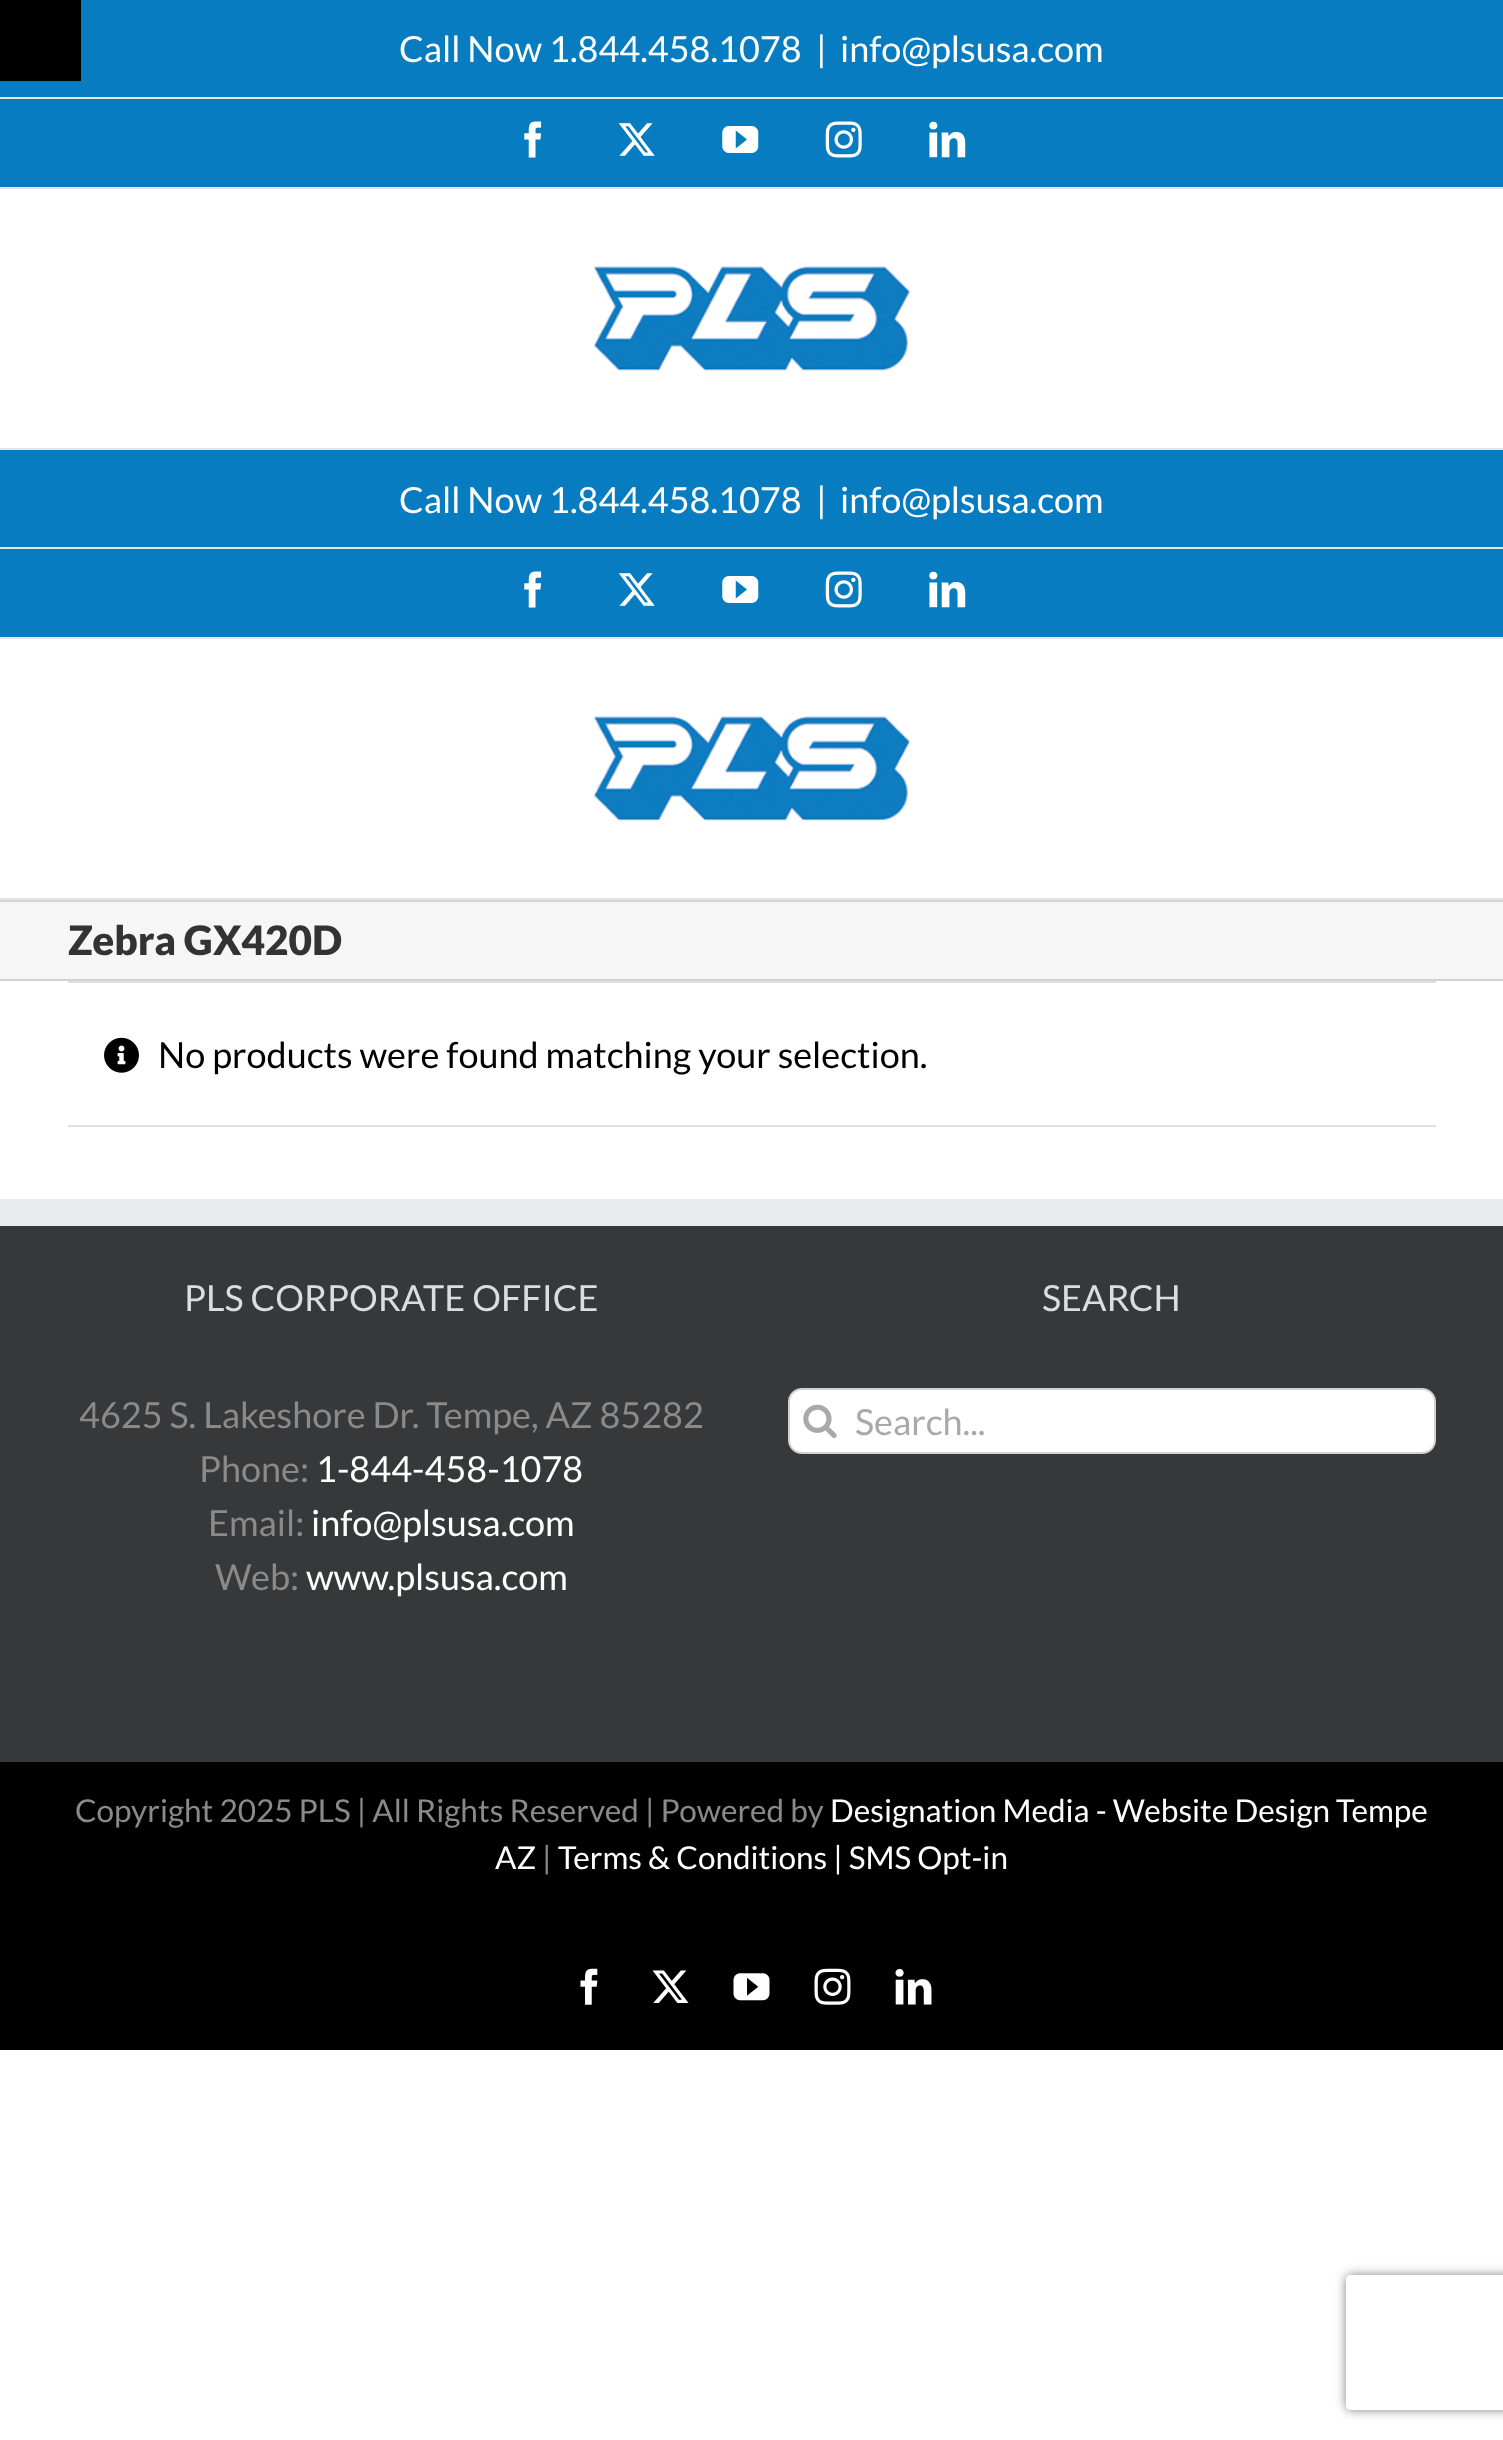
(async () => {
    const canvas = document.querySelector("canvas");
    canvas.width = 1503;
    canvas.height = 2440;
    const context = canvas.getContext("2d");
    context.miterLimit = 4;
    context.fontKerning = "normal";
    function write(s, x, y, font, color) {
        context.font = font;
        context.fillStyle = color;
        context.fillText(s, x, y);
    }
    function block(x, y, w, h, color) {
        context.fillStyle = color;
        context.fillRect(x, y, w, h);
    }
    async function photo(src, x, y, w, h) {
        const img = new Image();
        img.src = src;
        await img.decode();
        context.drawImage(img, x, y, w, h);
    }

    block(0, 0, 1503, 2440, "rgb(255, 255, 255)");
    block(0, 0, 1503, 187, "rgb(7, 124, 193)");
    block(0, 0, 81, 81, "rgb(0, 0, 0)");
    block(0, 187, 1503, 2, "rgb(229, 229, 229)");
    block(0, 97, 1503, 2, "rgb(229, 229, 229)");
    write("Call Now 1.844.458.1078", 399, 62, "36px Lato", "rgb(255, 255, 255)");
    write("|", 816, 62, "36px Lato", "rgb(255, 255, 255)");
    write("info@plsusa.com", 840, 62, "36px Lato", "rgb(255, 255, 255)");
    await photo("media/1.png", 524, 121, 18, 37);
    await photo("media/2.png", 618, 123, 37, 33);
    await photo("media/3.png", 722, 126, 37, 27);
    await photo("media/4.png", 825, 121, 37, 37);
    await photo("media/5.png", 929, 121, 37, 37);
    block(0, 448, 1503, 2, "rgb(229, 229, 229)");
    await photo("media/6.png", 593, 266, 318, 105);
    block(0, 450, 1503, 187, "rgb(7, 124, 193)");
    block(0, 637, 1503, 2, "rgb(229, 229, 229)");
    block(0, 547, 1503, 2, "rgb(229, 229, 229)");
    write("Call Now 1.844.458.1078", 399, 513, "36px Lato", "rgb(255, 255, 255)");
    write("|", 816, 513, "36px Lato", "rgb(255, 255, 255)");
    write("info@plsusa.com", 840, 513, "36px Lato", "rgb(255, 255, 255)");
    await photo("media/1.png", 524, 571, 18, 37);
    await photo("media/2.png", 618, 573, 37, 33);
    await photo("media/3.png", 722, 576, 37, 27);
    await photo("media/4.png", 825, 571, 37, 37);
    await photo("media/5.png", 929, 571, 37, 37);
    block(0, 898, 1503, 2, "rgb(229, 229, 229)");
    await photo("media/6.png", 593, 716, 318, 105);
    block(0, 902, 1503, 77, "rgb(246, 246, 246)");
    block(0, 900, 1503, 2, "rgb(210, 211, 212)");
    block(0, 979, 1503, 2, "rgb(210, 211, 212)");
    write("Zebra GX420D", 68, 955, "900 40.5px Lato", "rgb(51, 51, 51)");
    block(68, 981, 1368, 2, "rgb(224, 222, 222)");
    block(68, 1125, 1368, 2, "rgb(224, 222, 222)");
    await photo("media/7.png", 104, 1037, 35, 36);
    write("No products were found matching your selection.", 158, 1068, "36px Lato", "rgb(0, 0, 0)");
    block(0, 1226, 1503, 536, "rgb(54, 56, 57)");
    block(0, 1199, 1503, 27, "rgb(233, 234, 238)");
    write("PLS CORPORATE OFFICE", 184, 1311, "36px Lato", "rgb(221, 221, 221)");
    write("4625 S. Lakeshore Dr. Tempe, AZ 85282", 79, 1428, "36px Lato", "rgb(140, 137, 137)");
    write("Phone:", 199, 1482, "36px Lato", "rgb(140, 137, 137)");
    write("1-844-458-1078", 316, 1482, "36px Lato", "rgb(255, 255, 255)");
    write("Email:", 208, 1536, "36px Lato", "rgb(140, 137, 137)");
    write("info@plsusa.com", 311, 1536, "36px Lato", "rgb(255, 255, 255)");
    write("Web:", 215, 1590, "36px Lato", "rgb(140, 137, 137)");
    write("www.plsusa.com", 306, 1590, "36px Lato", "rgb(255, 255, 255)");
    write("SEARCH", 1042, 1311, "36px Lato", "rgb(221, 221, 221)");
    context.fillStyle = "rgb(255, 255, 255)";
    context.beginPath();
    context.roundRect(789, 1389, 646, 64, 13);
    context.fill();
    context.strokeStyle = "rgb(210, 210, 210)";
    context.lineWidth = 2;
    context.stroke();
    await photo("media/8.png", 803, 1404, 34, 34);
    write("Search...", 855, 1435, "36px Lato", "rgb(170, 169, 169)");
    block(0, 1762, 1503, 288, "rgb(0, 0, 0)");
    write("Copyright 2025 PLS | All Rights Reserved | Powered by", 75, 1822, "31.5px Lato", "rgb(140, 137, 137)");
    write("Designation Media - Website Design Tempe", 830, 1822, "31.5px Lato", "rgb(255, 255, 255)");
    write("AZ", 495, 1869, "31.5px Lato", "rgb(255, 255, 255)");
    write("|", 542, 1869, "31.5px Lato", "rgb(140, 137, 137)");
    write("Terms & Conditions | SMS Opt-in", 558, 1869, "31.5px Lato", "rgb(255, 255, 255)");
    await photo("media/9.png", 580, 1968, 18, 37);
    await photo("media/10.png", 652, 1970, 37, 33);
    await photo("media/11.png", 733, 1973, 37, 28);
    await photo("media/12.png", 814, 1968, 37, 37);
    await photo("media/13.png", 895, 1969, 37, 36);
    context.save();
    context.beginPath();
    context.moveTo(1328, 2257);
    context.lineTo(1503, 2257);
    context.lineTo(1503, 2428);
    context.lineTo(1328, 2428);
    context.closePath();
    context.moveTo(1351, 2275);
    context.lineTo(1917, 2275);
    context.bezierCurveTo(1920, 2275, 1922, 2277, 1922, 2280);
    context.lineTo(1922, 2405);
    context.bezierCurveTo(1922, 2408, 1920, 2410, 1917, 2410);
    context.lineTo(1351, 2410);
    context.bezierCurveTo(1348, 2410, 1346, 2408, 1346, 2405);
    context.lineTo(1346, 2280);
    context.bezierCurveTo(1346, 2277, 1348, 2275, 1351, 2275);
    context.closePath();
    context.clip("evenodd");
    context.fillStyle = "rgb(128, 128, 128)";
    context.filter = "blur(5.5px)";
    context.beginPath();
    context.roundRect(1346, 2275, 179, 135, 5);
    context.fill();
    context.filter = "none";
    context.restore();
})();
